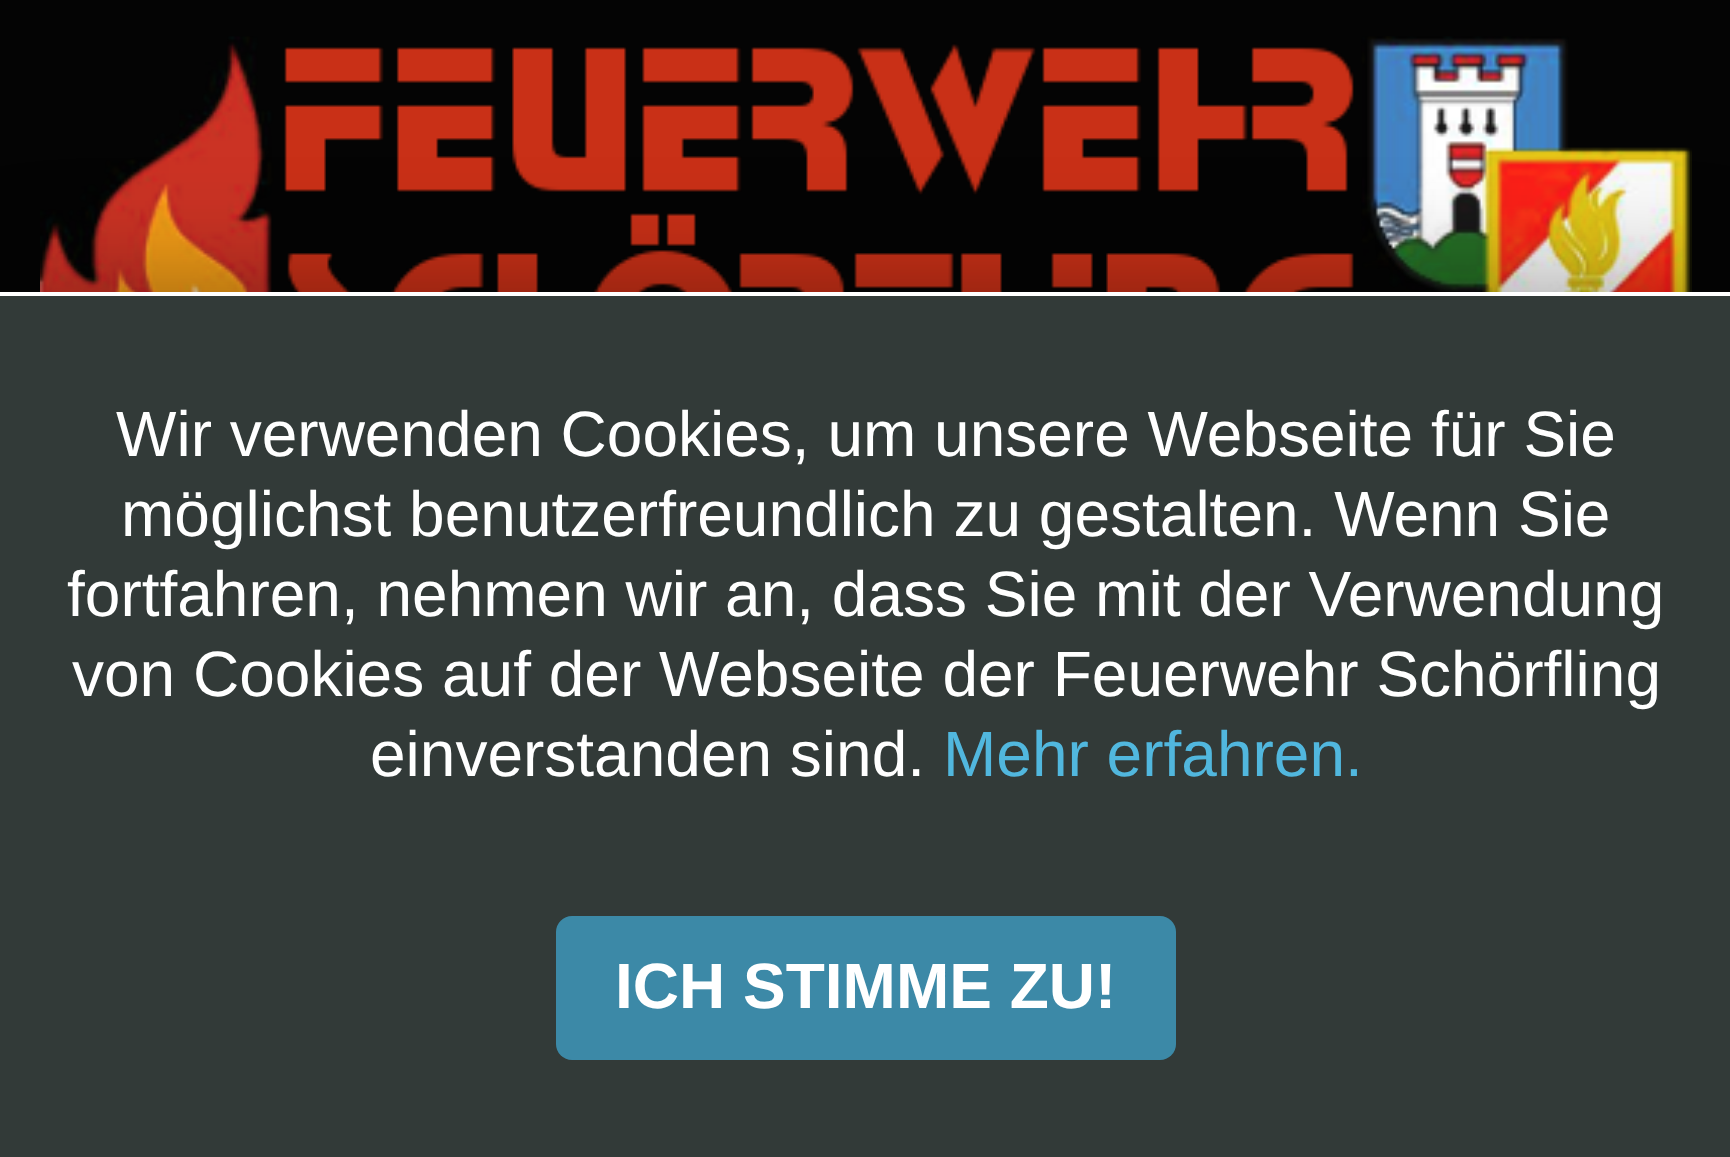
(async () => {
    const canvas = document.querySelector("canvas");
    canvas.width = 1730;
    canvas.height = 1157;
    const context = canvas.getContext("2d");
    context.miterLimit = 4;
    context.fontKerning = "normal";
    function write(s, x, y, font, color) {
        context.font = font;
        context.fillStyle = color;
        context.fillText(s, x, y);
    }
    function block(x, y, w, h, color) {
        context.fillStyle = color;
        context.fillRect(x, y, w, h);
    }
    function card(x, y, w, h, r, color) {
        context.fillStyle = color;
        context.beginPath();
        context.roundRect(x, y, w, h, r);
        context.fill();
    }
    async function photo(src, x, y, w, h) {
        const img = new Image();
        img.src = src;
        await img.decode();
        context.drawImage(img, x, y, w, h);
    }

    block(0, 0, 1730, 1157, "rgb(4, 4, 4)");
    await photo("media/1.png", 40, 36, 1652, 256);
    context.fillStyle = "rgba(0, 0, 0, 0.4)";
    context.filter = "blur(60px)";
    context.beginPath();
    context.rect(0, 292, 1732, 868);
    context.fill();
    context.filter = "none";
    block(0, 296, 1730, 861, "rgb(50, 58, 56)");
    block(0, 292, 1730, 4, "rgb(255, 255, 255)");
    write("Wir verwenden Cookies, um unsere Webseite für Sie", 116, 456, "64px Liberation Sans", "rgb(255, 255, 255)");
    write("möglichst benutzerfreundlich zu gestalten. Wenn Sie", 121, 536, "64px Liberation Sans", "rgb(255, 255, 255)");
    write("fortfahren, nehmen wir an, dass Sie mit der Verwendung", 67, 616, "64px Liberation Sans", "rgb(255, 255, 255)");
    write("von Cookies auf der Webseite der Feuerwehr Schörfling", 72, 696, "64px Liberation Sans", "rgb(255, 255, 255)");
    write("einverstanden sind.", 370, 776, "64px Liberation Sans", "rgb(255, 255, 255)");
    write("Mehr erfahren.", 943, 776, "64px Liberation Sans", "rgb(81, 183, 222)");
    card(556, 916, 620, 144, 16, "rgb(60, 137, 167)");
    write("ICH STIMME ZU!", 615, 1008, "bold 64px Liberation Sans", "rgb(255, 255, 255)");
})();
